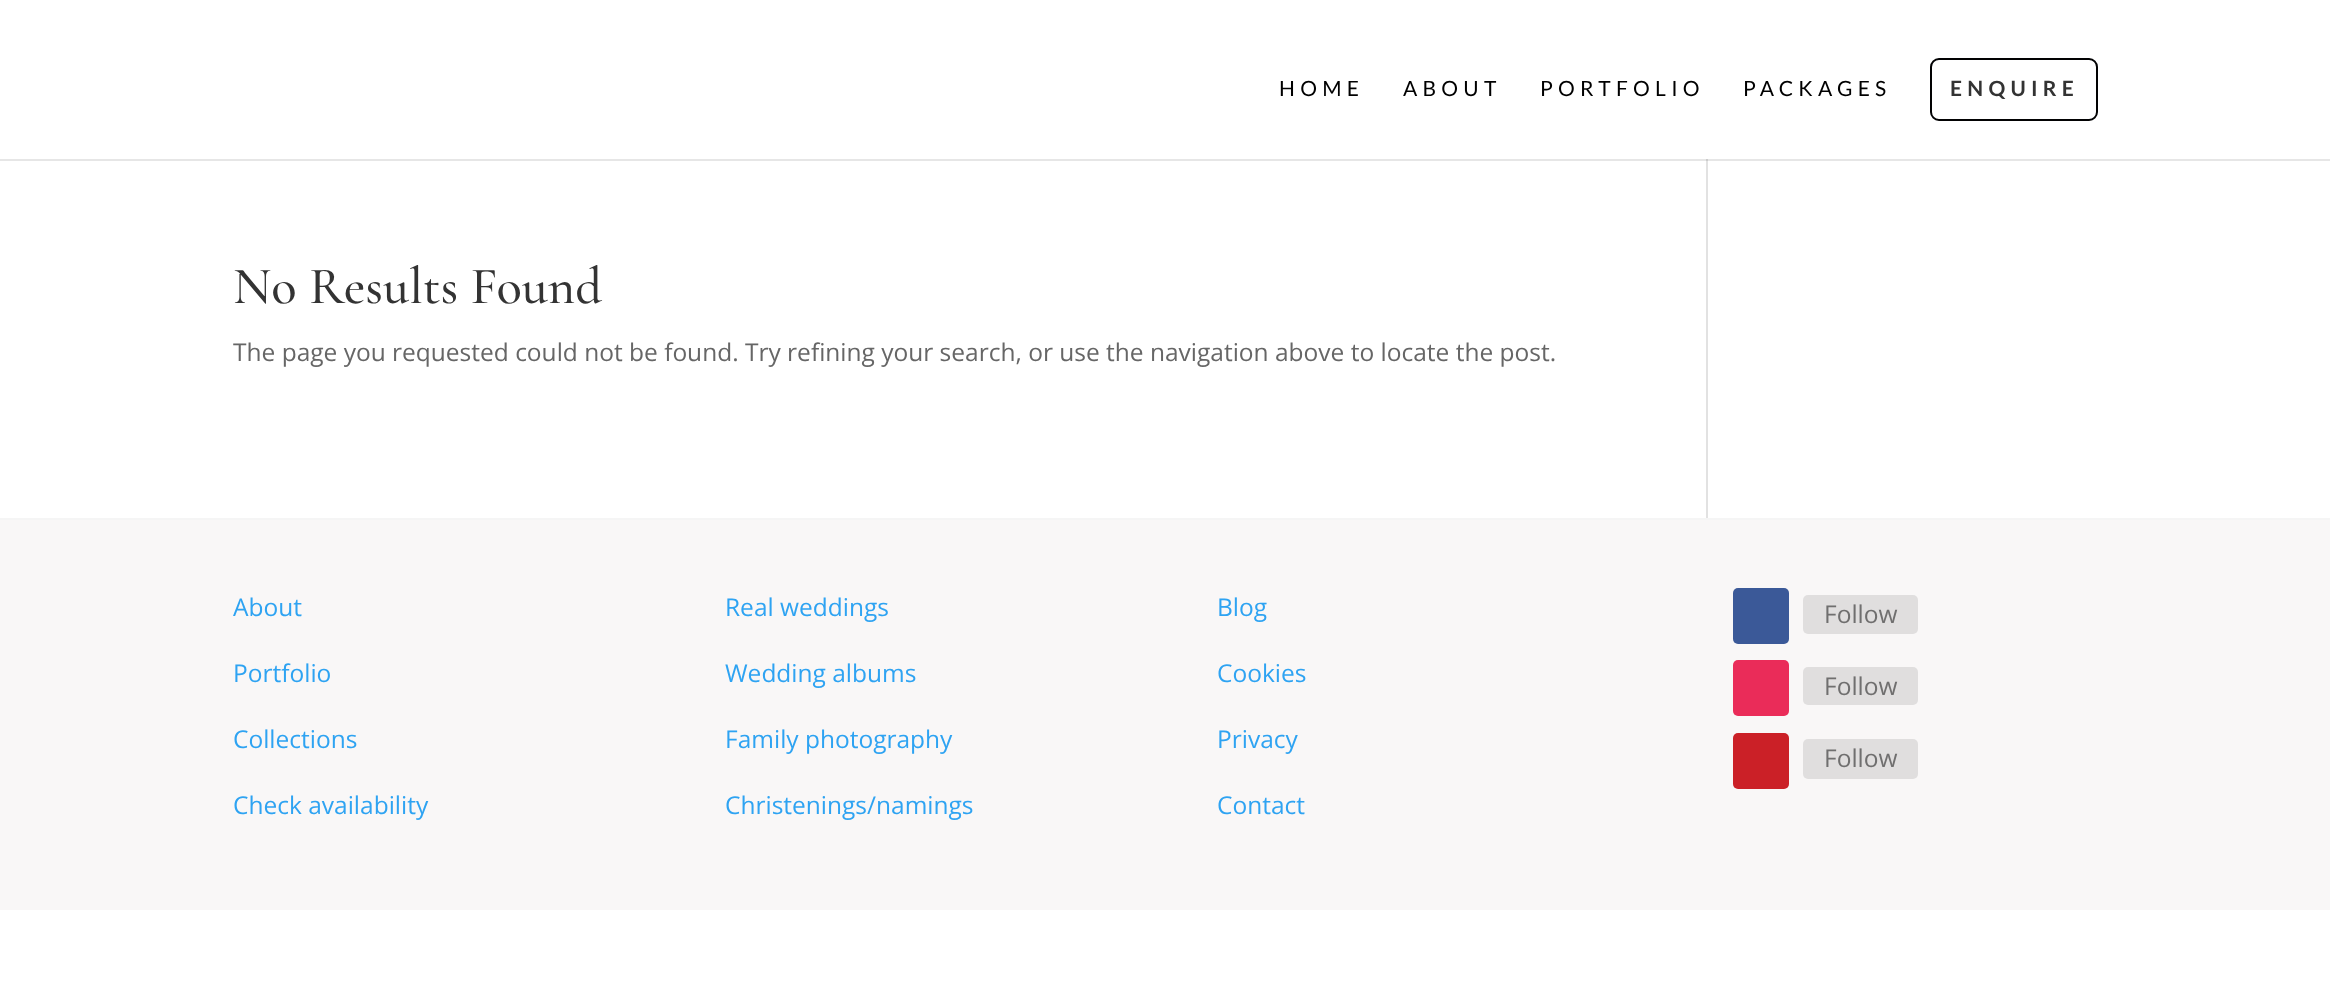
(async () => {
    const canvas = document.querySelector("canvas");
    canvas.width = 2330;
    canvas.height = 997;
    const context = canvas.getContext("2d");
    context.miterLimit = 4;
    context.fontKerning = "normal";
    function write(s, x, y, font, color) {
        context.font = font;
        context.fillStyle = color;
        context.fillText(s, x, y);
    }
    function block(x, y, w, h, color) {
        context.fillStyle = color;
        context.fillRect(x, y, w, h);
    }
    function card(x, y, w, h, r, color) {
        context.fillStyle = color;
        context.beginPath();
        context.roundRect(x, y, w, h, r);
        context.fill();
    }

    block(0, 0, 2330, 997, "rgb(255, 255, 255)");
    block(0, 159, 2330, 2, "rgb(230, 230, 230)");
    context.letterSpacing = "5.25px";
    write("HOME", 1279, 96, "21px Lato", "rgb(0, 0, 0)");
    write("ABOUT", 1403, 96, "21px Lato", "rgb(0, 0, 0)");
    write("PORTFOLIO", 1540, 96, "21px Lato", "rgb(0, 0, 0)");
    write("PACKAGES", 1743, 96, "21px Lato", "rgb(0, 0, 0)");
    context.beginPath();
    context.roundRect(1931, 59, 166, 61, 8);
    context.strokeStyle = "rgb(2, 2, 3)";
    context.lineWidth = 2;
    context.stroke();
    write("ENQUIRE", 1950, 96, "bold 21px Lato", "rgb(51, 51, 51)");
    context.letterSpacing = "0px";
    write("No Results Found", 233, 303, "500 52.5px Cormorant Garamond", "rgb(51, 51, 51)");
    write("The page you requested could not be found. Try refining your search, or use the navigation above to locate the post.", 233, 361, "24.5px Open Sans", "rgb(102, 102, 102)");
    block(1706, 159, 2, 359, "rgb(226, 226, 226)");
    block(1706, 159, 2, 2, "rgb(203, 203, 203)");
    block(0, 520, 2330, 390, "rgb(249, 247, 247)");
    block(0, 518, 2330, 2, "rgb(245, 245, 245)");
    write("About", 233, 616, "24.5px Open Sans", "rgb(46, 163, 242)");
    write("Portfolio", 233, 682, "24.5px Open Sans", "rgb(46, 163, 242)");
    write("Collections", 233, 748, "24.5px Open Sans", "rgb(46, 163, 242)");
    write("Check availability", 233, 814, "24.5px Open Sans", "rgb(46, 163, 242)");
    write("Real weddings", 725, 616, "24.5px Open Sans", "rgb(46, 163, 242)");
    write("Wedding albums", 725, 682, "24.5px Open Sans", "rgb(46, 163, 242)");
    write("Family photography", 725, 748, "24.5px Open Sans", "rgb(46, 163, 242)");
    write("Christenings/namings", 725, 814, "24.5px Open Sans", "rgb(46, 163, 242)");
    write("Blog", 1217, 616, "24.5px Open Sans", "rgb(46, 163, 242)");
    write("Cookies", 1217, 682, "24.5px Open Sans", "rgb(46, 163, 242)");
    write("Privacy", 1217, 748, "24.5px Open Sans", "rgb(46, 163, 242)");
    write("Contact", 1217, 814, "24.5px Open Sans", "rgb(46, 163, 242)");
    card(1733, 588, 56, 56, 5, "rgb(59, 89, 152)");
    card(1803, 595, 115, 39, 5, "rgb(224, 222, 222)");
    write("Follow", 1824, 623, "24.5px Open Sans", "rgb(112, 111, 111)");
    card(1733, 660, 56, 56, 5, "rgb(234, 44, 89)");
    card(1803, 667, 115, 38, 5, "rgb(224, 222, 222)");
    write("Follow", 1824, 695, "24.5px Open Sans", "rgb(112, 111, 111)");
    card(1733, 733, 56, 56, 5, "rgb(203, 32, 39)");
    card(1803, 739, 115, 40, 5, "rgb(224, 222, 222)");
    write("Follow", 1824, 767, "24.5px Open Sans", "rgb(112, 111, 111)");
})();
